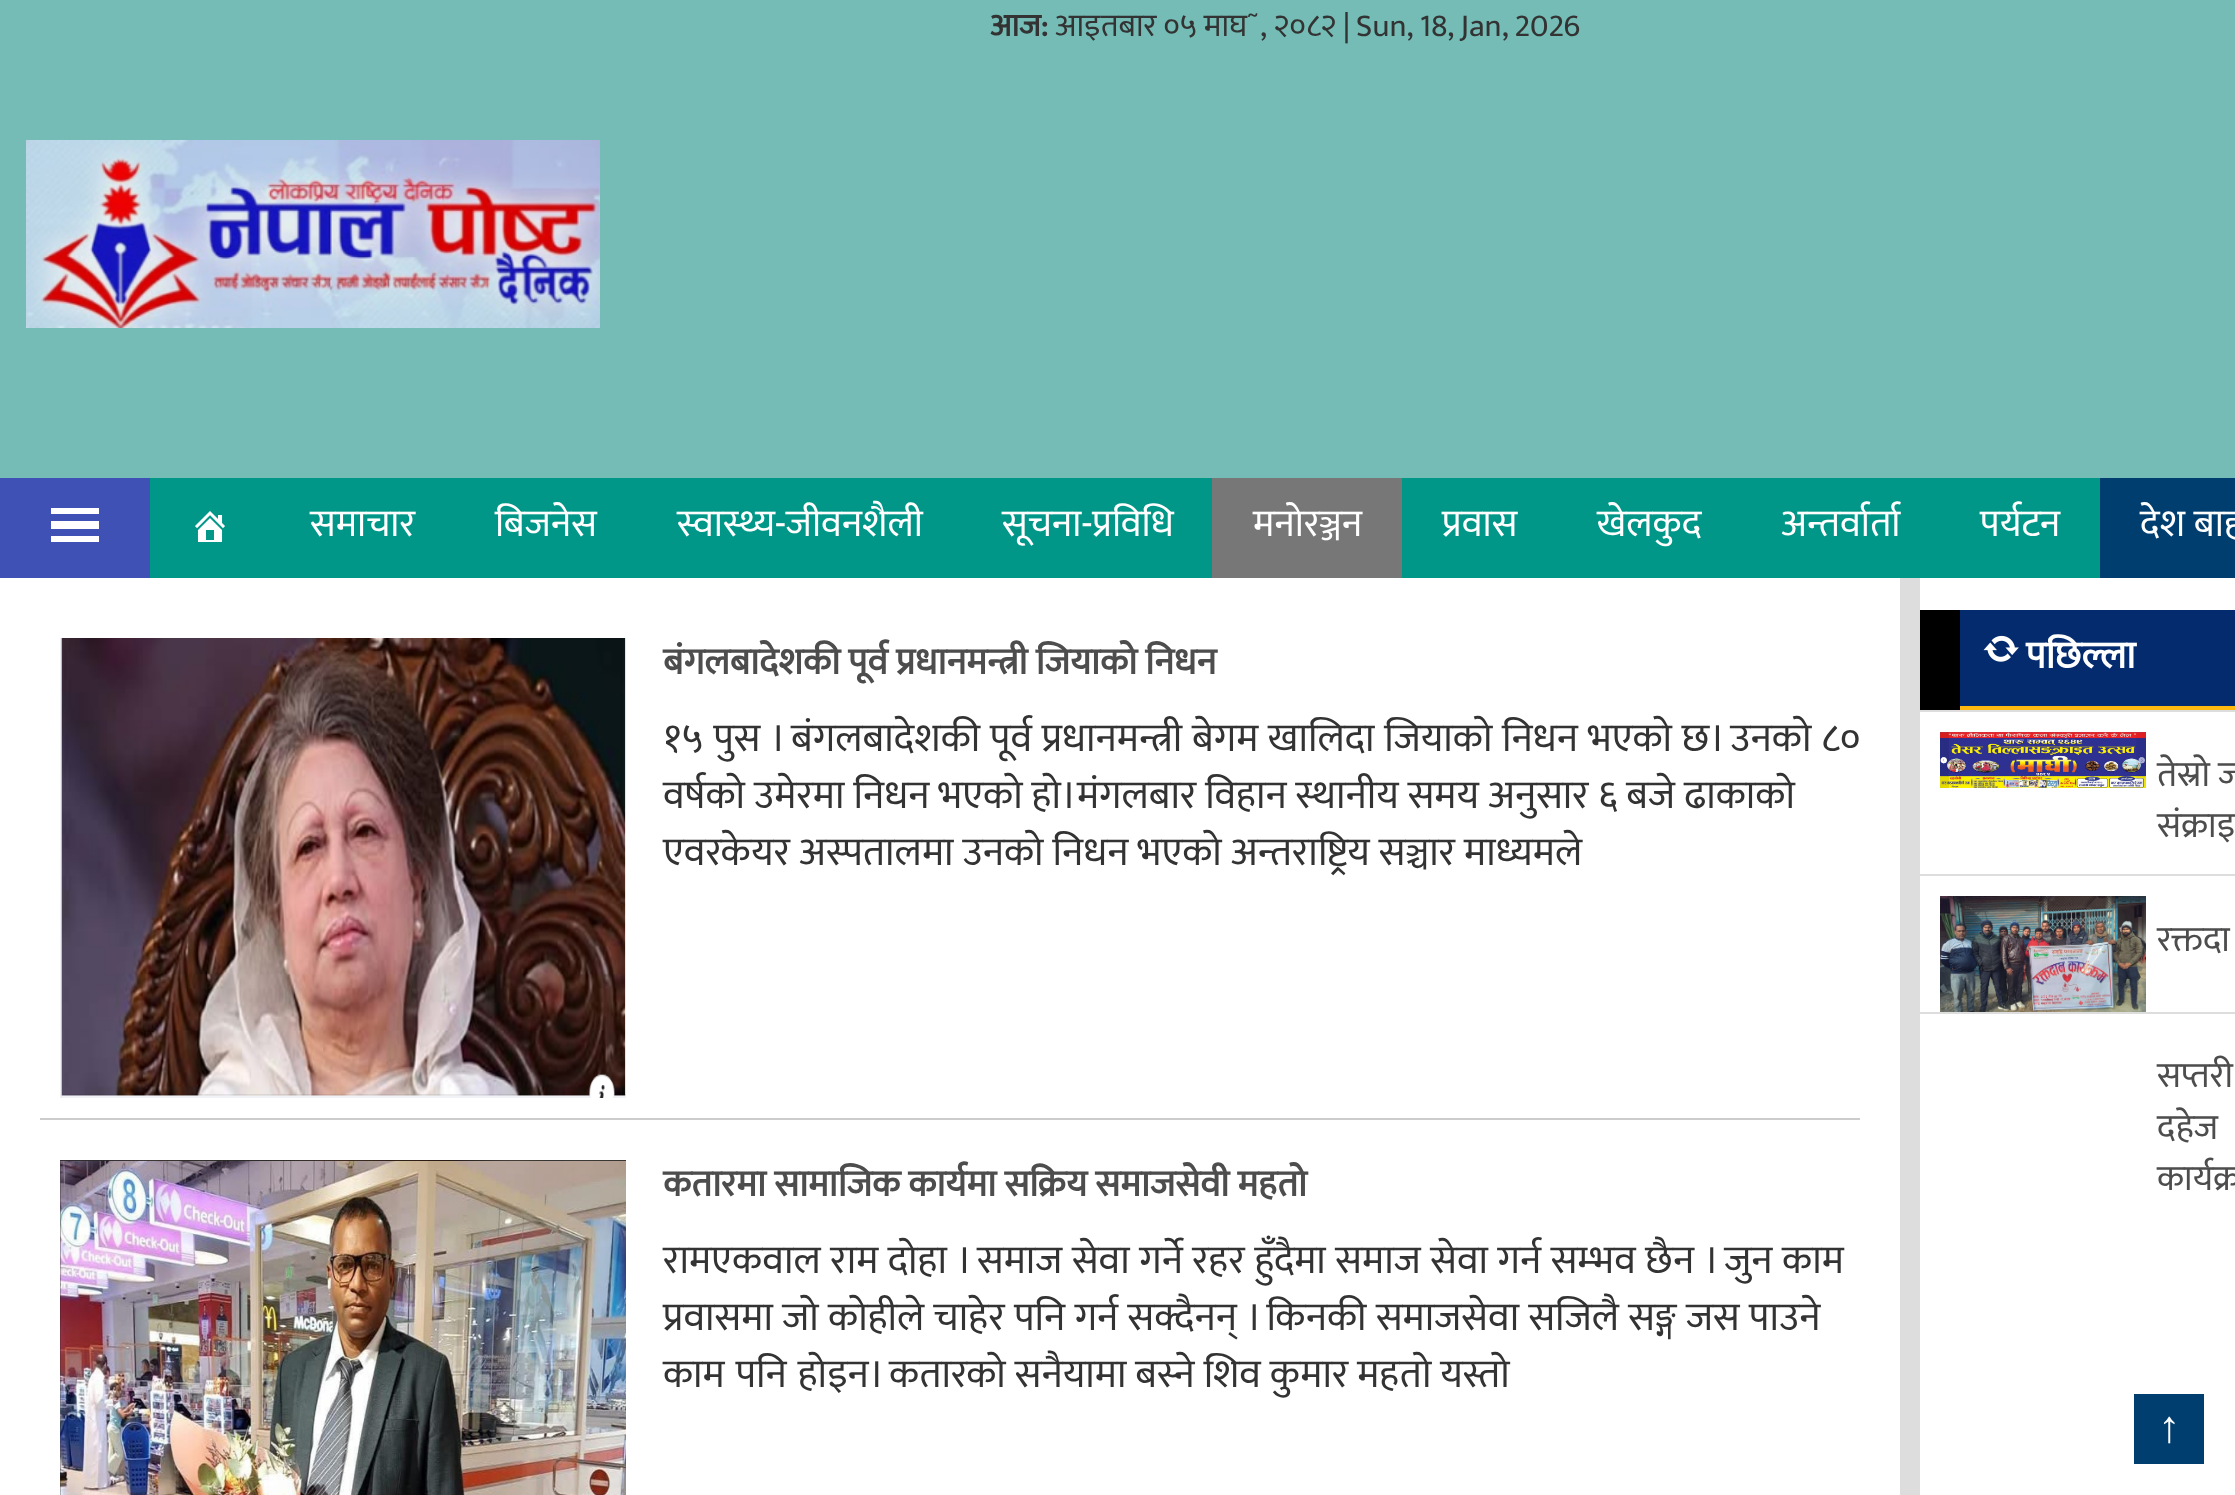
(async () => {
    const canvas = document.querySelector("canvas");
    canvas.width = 2235;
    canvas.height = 1495;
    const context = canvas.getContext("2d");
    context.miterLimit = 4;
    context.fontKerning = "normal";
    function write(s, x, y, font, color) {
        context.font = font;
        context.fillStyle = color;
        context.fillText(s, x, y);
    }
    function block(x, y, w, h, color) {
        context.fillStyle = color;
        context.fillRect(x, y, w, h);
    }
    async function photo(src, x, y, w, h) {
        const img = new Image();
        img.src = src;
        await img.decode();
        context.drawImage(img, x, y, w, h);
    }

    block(0, 0, 2235, 1495, "rgb(221, 221, 221)");
    block(0, 0, 2235, 478, "rgb(116, 188, 181)");
    write("आज:", 990, 36, "bold 32px Ek Mukta", "rgb(51, 51, 51)");
    context.wordSpacing = "-0.5px";
    write("आइतबार ०५ माघ˜, २०८२", 1055, 36, "32px Ek Mukta", "rgb(51, 51, 51)");
    context.wordSpacing = "-1px";
    write("| Sun, 18, Jan, 2026", 1343, 36, "32px Ek Mukta", "rgb(51, 51, 51)");
    await photo("media/1.png", 26, 140, 574, 188);
    block(150, 478, 1950, 100, "rgb(0, 150, 136)");
    block(0, 478, 150, 100, "rgb(63, 81, 181)");
    context.fillStyle = "rgb(255, 255, 255)";
    context.beginPath();
    context.moveTo(51, 542);
    context.lineTo(99, 542);
    context.lineTo(99, 536);
    context.lineTo(51, 536);
    context.closePath();
    context.moveTo(51, 508);
    context.lineTo(51, 514);
    context.lineTo(99, 514);
    context.lineTo(99, 508);
    context.closePath();
    context.moveTo(51, 529);
    context.lineTo(99, 529);
    context.lineTo(99, 521);
    context.lineTo(51, 521);
    context.closePath();
    context.fill();
    await photo("media/2.png", 195, 511, 30, 31);
    context.wordSpacing = "0px";
    write("समाचार", 310, 536, "38.5px Ek Mukta", "rgb(255, 255, 255)");
    write("बिजनेस", 495, 536, "38.5px Ek Mukta", "rgb(255, 255, 255)");
    write("स्वास्थ्य-जीवनशैली", 677, 536, "38.5px Ek Mukta", "rgb(255, 255, 255)");
    write("सूचना-प्रविधि", 1002, 536, "38.5px Ek Mukta", "rgb(255, 255, 255)");
    block(1212, 478, 190, 100, "rgb(119, 119, 119)");
    write("मनोरञ्जन", 1253, 536, "38.5px Ek Mukta", "rgb(255, 255, 255)");
    write("प्रवास", 1442, 536, "38.5px Ek Mukta", "rgb(255, 255, 255)");
    write("खेलकुद", 1597, 536, "38.5px Ek Mukta", "rgb(255, 255, 255)");
    write("अन्तर्वार्ता", 1781, 536, "38.5px Ek Mukta", "rgb(255, 255, 255)");
    write("पर्यटन", 1980, 536, "38.5px Ek Mukta", "rgb(255, 255, 255)");
    block(2100, 478, 135, 100, "rgb(0, 62, 111)");
    write("देश बाह", 2140, 536, "38.5px Ek Mukta", "rgb(255, 255, 255)");
    block(0, 578, 1900, 917, "rgb(255, 255, 255)");
    block(40, 1118, 1820, 2, "rgb(204, 204, 204)");
    await photo("media/3.png", 60, 638, 566, 460);
    write("बंगलबादेशकी पूर्व प्रधानमन्त्री जियाको निधन", 663, 674, "bold 37.4px Ek Mukta", "rgb(77, 77, 77)");
    context.wordSpacing = "0.75px";
    write("१५ पुस । बंगलबादेशकी पूर्व प्रधानमन्त्री बेगम खालिदा जियाको निधन भएको छ। उनको ८०", 663, 751, "40px Ek Mukta", "rgb(51, 51, 51)");
    context.wordSpacing = "0px";
    write("वर्षको उमेरमा निधन भएको हो।मंगलबार विहान स्थानीय समय अनुसार ६ बजे ढाकाको", 663, 808, "40px Ek Mukta", "rgb(51, 51, 51)");
    write("एवरकेयर अस्पतालमा उनको निधन भएको अन्तराष्ट्रिय सञ्चार माध्यमले", 663, 865, "40px Ek Mukta", "rgb(51, 51, 51)");
    await photo("media/4.png", 60, 1160, 566, 335);
    write("कतारमा सामाजिक कार्यमा सक्रिय समाजसेवी महतो", 663, 1196, "bold 37.4px Ek Mukta", "rgb(77, 77, 77)");
    context.wordSpacing = "0.6px";
    write("रामएकवाल राम दोहा । समाज सेवा गर्ने रहर हुँदैमा समाज सेवा गर्न सम्भव छैन । जुन काम", 663, 1273, "40px Ek Mukta", "rgb(51, 51, 51)");
    context.wordSpacing = "0.4px";
    write("प्रवासमा जो कोहीले चाहेर पनि गर्न सक्दैनन् । किनकी समाजसेवा सजिलै सङ्ग जस पाउने", 663, 1330, "40px Ek Mukta", "rgb(51, 51, 51)");
    context.wordSpacing = "2px";
    write("काम पनि होइन।", 663, 1387, "40px Ek Mukta", "rgb(51, 51, 51)");
    context.wordSpacing = "0px";
    write("कतारको सनैयामा बस्ने शिव कुमार महतो यस्तो", 889, 1387, "40px Ek Mukta", "rgb(51, 51, 51)");
    block(1920, 578, 315, 917, "rgb(255, 255, 255)");
    block(1920, 610, 40, 100, "rgb(0, 0, 0)");
    block(1920, 710, 315, 2, "rgb(221, 221, 221)");
    block(1960, 610, 275, 96, "rgb(3, 43, 109)");
    block(1960, 706, 275, 4, "rgb(255, 185, 15)");
    await photo("media/5.png", 1983, 635, 36, 27);
    write("पछिल्ला", 2026, 668, "bold 38.5px Ek Mukta", "rgb(255, 255, 255)");
    block(1920, 874, 315, 2, "rgb(221, 221, 221)");
    await photo("media/6.png", 1940, 732, 206, 56);
    write("तेस्रो ज", 2157, 786, "36px Ek Mukta", "rgb(77, 77, 77)");
    write("संक्राइ", 2157, 837, "36px Ek Mukta", "rgb(77, 77, 77)");
    block(1920, 1012, 315, 2, "rgb(221, 221, 221)");
    await photo("media/7.png", 1940, 896, 206, 116);
    write("रक्तदा", 2157, 951, "36px Ek Mukta", "rgb(77, 77, 77)");
    write("सप्तरी", 2157, 1087, "36px Ek Mukta", "rgb(77, 77, 77)");
    write("दहेज", 2157, 1139, "36px Ek Mukta", "rgb(77, 77, 77)");
    write("कार्यक्र", 2157, 1190, "36px Ek Mukta", "rgb(77, 77, 77)");
    block(2134, 1394, 70, 70, "rgb(0, 62, 111)");
    write("↑", 2158, 1442, "45px Liberation Serif", "rgb(255, 255, 255)");
})();
